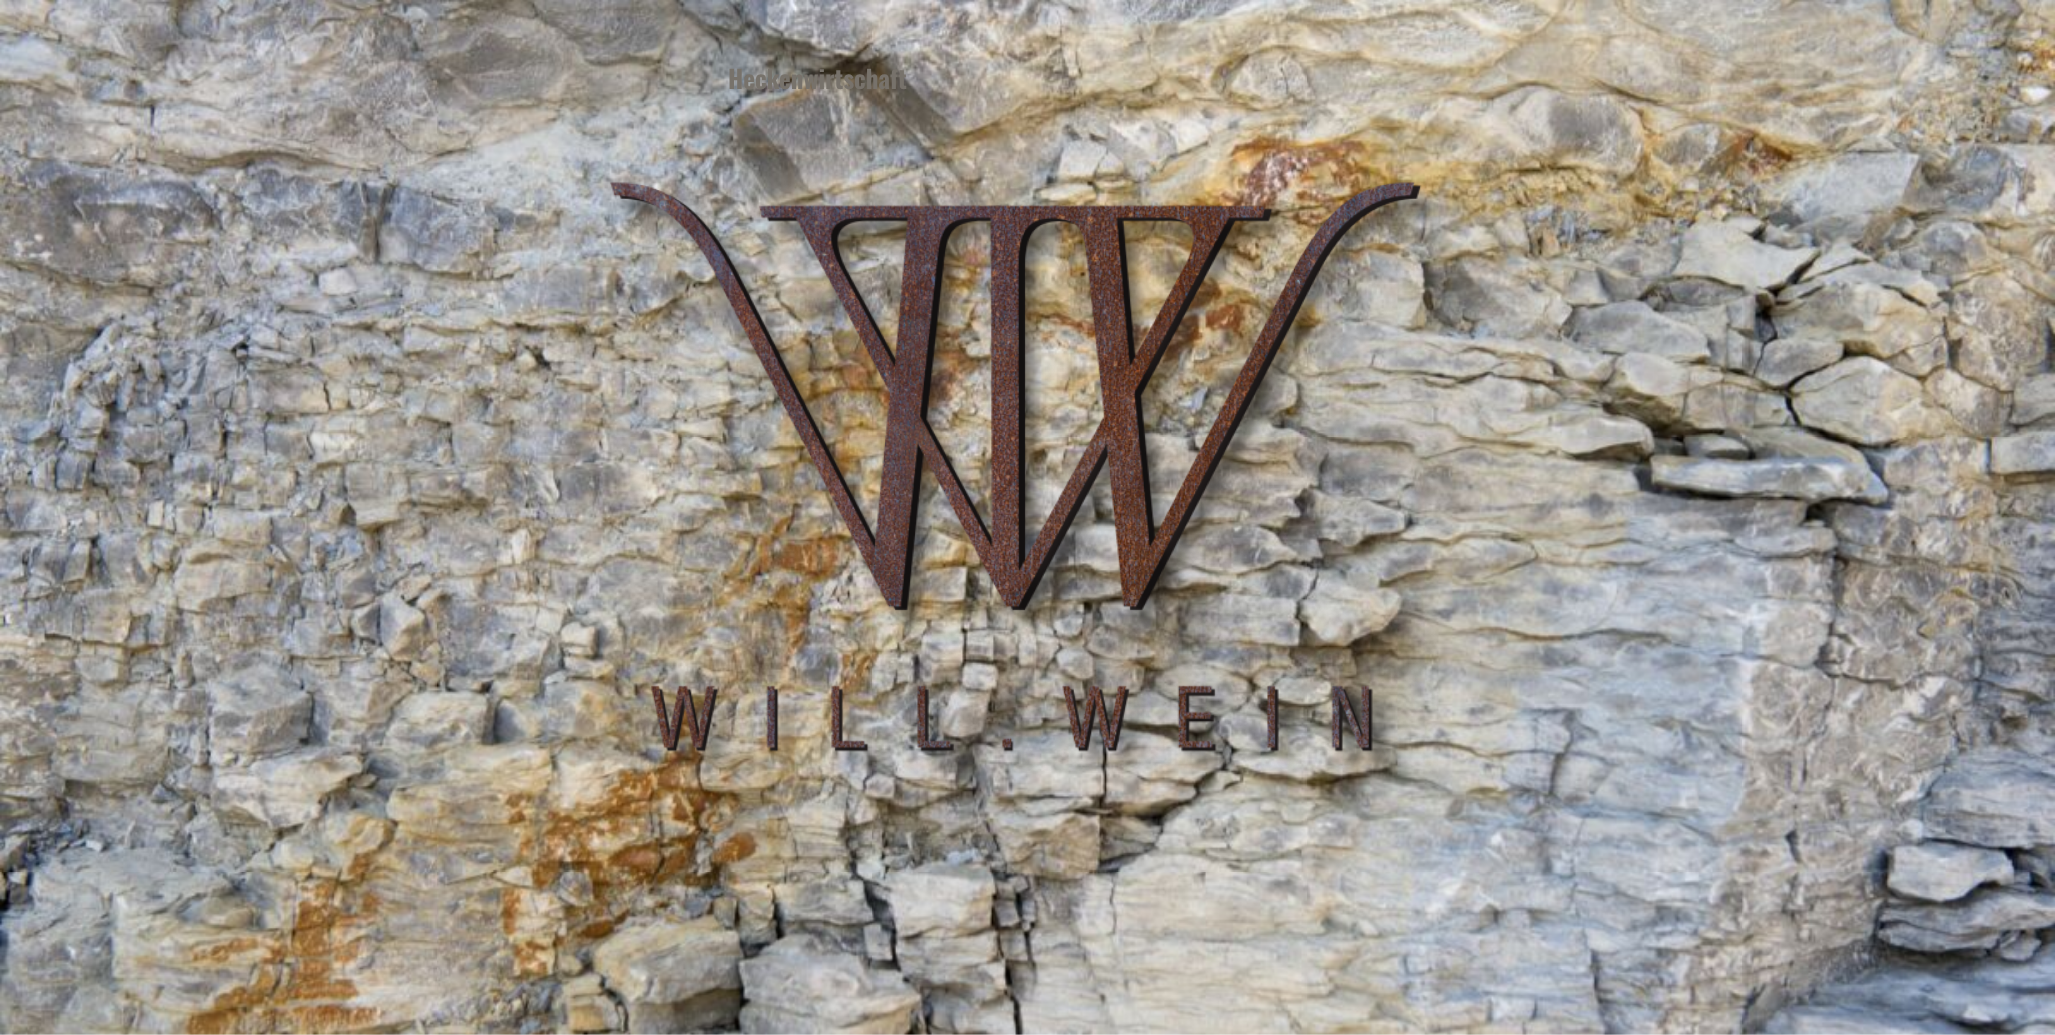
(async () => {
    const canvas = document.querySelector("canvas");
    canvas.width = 2055;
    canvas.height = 1035;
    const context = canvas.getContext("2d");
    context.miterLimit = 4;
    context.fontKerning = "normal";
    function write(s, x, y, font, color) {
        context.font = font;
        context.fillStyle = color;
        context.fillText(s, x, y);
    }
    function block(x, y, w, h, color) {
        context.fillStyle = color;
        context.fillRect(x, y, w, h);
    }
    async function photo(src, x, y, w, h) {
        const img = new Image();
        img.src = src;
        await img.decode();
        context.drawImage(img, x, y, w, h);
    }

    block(0, 0, 2055, 1035, "rgb(255, 255, 255)");
    await photo("media/1.png", 0, 0, 2055, 1035);
    write("Heckenwirtschaft", 728, 89, "bold 25px Oswald", "rgb(119, 114, 107)");
    await photo("media/2.png", 610, 181, 828, 592);
})();
